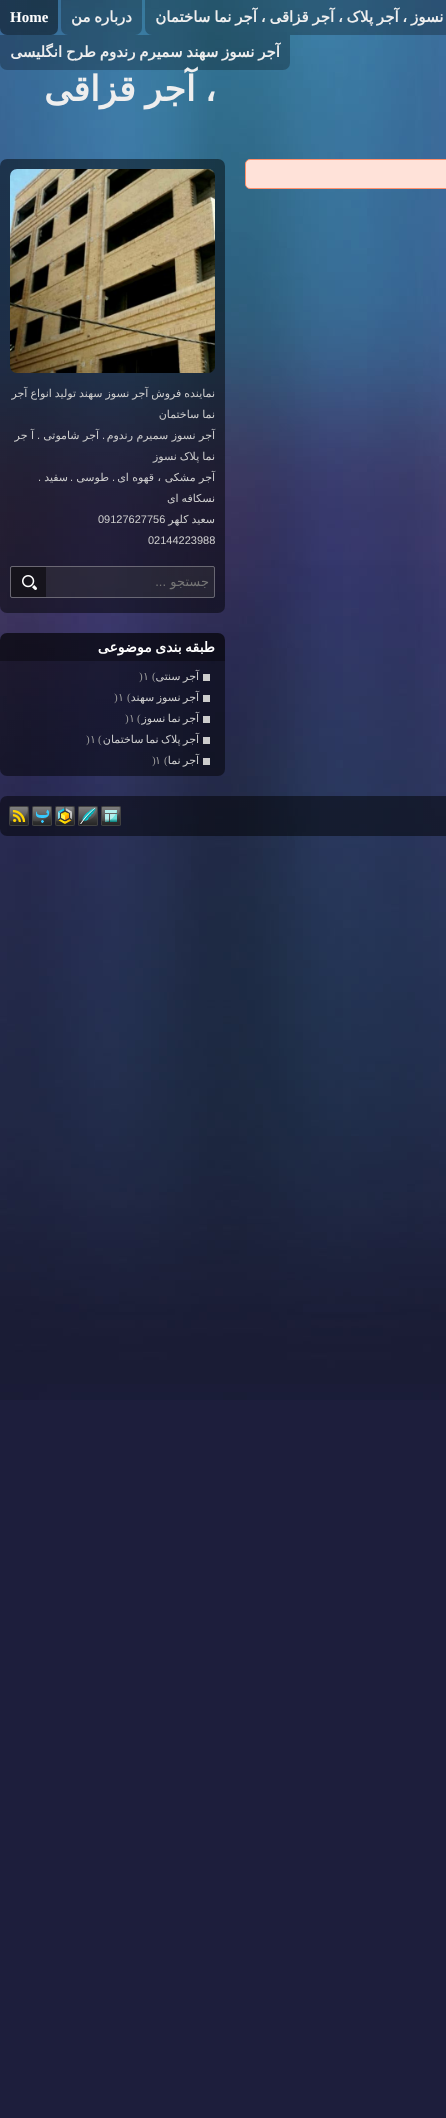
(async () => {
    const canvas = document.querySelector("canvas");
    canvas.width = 446;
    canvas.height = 2118;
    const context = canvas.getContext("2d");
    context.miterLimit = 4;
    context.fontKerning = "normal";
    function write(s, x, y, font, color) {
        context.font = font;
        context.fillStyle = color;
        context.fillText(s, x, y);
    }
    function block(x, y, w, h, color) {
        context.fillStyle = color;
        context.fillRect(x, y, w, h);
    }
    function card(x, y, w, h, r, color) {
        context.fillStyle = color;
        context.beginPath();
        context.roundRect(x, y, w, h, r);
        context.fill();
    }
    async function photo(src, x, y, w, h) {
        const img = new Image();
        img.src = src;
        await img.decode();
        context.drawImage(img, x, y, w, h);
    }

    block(0, 0, 446, 2118, "rgb(29, 30, 60)");
    await photo("media/1.png", 0, 0, 446, 1400);
    await photo("media/2.png", 145, 0, 301, 35);
    context.wordSpacing = "-1px";
    context.direction = "rtl";
    write("آجر نسوز ، آجر پلاک ، آجر قزاقی ، آجر نما ساختمان", 469, 22, "bold 15px DejaVu Sans", "rgb(238, 238, 238)");
    await photo("media/3.png", 61, 0, 81, 35);
    write("درباره من", 132, 22, "bold 15px DejaVu Sans", "rgb(238, 238, 238)");
    await photo("media/4.png", 0, 0, 58, 35);
    context.wordSpacing = "0px";
    context.direction = "ltr";
    write("Home", 10, 22, "bold 15px Liberation Serif", "rgb(255, 255, 255)");
    await photo("media/5.png", 0, 35, 290, 35);
    context.wordSpacing = "-1px";
    context.direction = "rtl";
    write("آجر نسوز سهند سمیرم رندوم طرح انگلیسی", 280, 57, "bold 15px DejaVu Sans", "rgb(238, 238, 238)");
    context.wordSpacing = "-2px";
    write("، آجر قزاقی", 216, 101, "bold 35px DejaVu Sans", "rgb(238, 238, 238)");
    context.fillStyle = "rgb(255, 226, 217)";
    context.beginPath();
    context.roundRect(245.5, 159.5, 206, 29, 4.5);
    context.fill();
    context.strokeStyle = "rgb(254, 143, 107)";
    context.stroke();
    await photo("media/6.png", 0, 159, 225, 454);
    await photo("media/7.png", 10, 169, 205, 204);
    context.wordSpacing = "-0.5px";
    write("نماینده فروش آجر نسوز سهند", 215, 397, "11px DejaVu Sans", "rgb(204, 204, 204)");
    write("تولید انواع آجر", 76, 397, "11px DejaVu Sans", "rgb(204, 204, 204)");
    write("نما ساختمان", 215, 418, "11px DejaVu Sans", "rgb(204, 204, 204)");
    context.wordSpacing = "0px";
    write("آجر نسوز سمیرم رندوم", 215, 439, "11px DejaVu Sans", "rgb(204, 204, 204)");
    write(".", 105, 439, "11px Liberation Sans", "rgb(204, 204, 204)");
    write("آجر شاموتی", 99, 439, "11px DejaVu Sans", "rgb(204, 204, 204)");
    write(".", 40, 439, "11px Liberation Sans", "rgb(204, 204, 204)");
    write("آ جر", 34, 439, "11px DejaVu Sans", "rgb(204, 204, 204)");
    context.wordSpacing = "-0.5px";
    write("نما پلاک نسوز", 215, 460, "11px DejaVu Sans", "rgb(204, 204, 204)");
    context.wordSpacing = "0px";
    write("آجر مشکی ، قهوه ای", 215, 481, "11px DejaVu Sans", "rgb(204, 204, 204)");
    write(".", 115, 481, "11px Liberation Sans", "rgb(204, 204, 204)");
    write("طوسی", 109, 481, "11px DejaVu Sans", "rgb(204, 204, 204)");
    write(".", 73, 481, "11px Liberation Sans", "rgb(204, 204, 204)");
    write("سفید", 68, 481, "11px DejaVu Sans", "rgb(204, 204, 204)");
    write(".", 41, 481, "11px Liberation Sans", "rgb(204, 204, 204)");
    context.wordSpacing = "-0.5px";
    write("نسکافه ای", 215, 502, "11px DejaVu Sans", "rgb(204, 204, 204)");
    write("سعید کلهر", 215, 523, "11px DejaVu Sans", "rgb(204, 204, 204)");
    context.wordSpacing = "0px";
    context.direction = "ltr";
    write("09127627756", 98, 523, "11px Liberation Sans", "rgb(204, 204, 204)");
    write("02144223988", 148, 544, "11px Liberation Sans", "rgb(204, 204, 204)");
    card(10, 566, 205, 32, 2, "rgba(70, 70, 70, 0.3)");
    context.beginPath();
    context.roundRect(10.5, 566.5, 204, 31, 1.5);
    context.strokeStyle = "rgba(255, 255, 255, 0.3)";
    context.stroke();
    context.direction = "rtl";
    write("جستجو", 209, 586, "13px DejaVu Sans", "rgb(117, 117, 117)");
    write("...", 166, 586, "13px Liberation Sans", "rgb(117, 117, 117)");
    context.fillStyle = "rgb(22, 20, 28)";
    context.beginPath();
    context.roundRect(11, 567, 35, 30, [2, 0, 0, 2]);
    context.fill();
    await photo("media/8.png", 22, 575, 15, 15);
    await photo("media/9.png", 0, 633, 225, 28);
    context.wordSpacing = "-1px";
    write("طبقه بندی موضوعی", 215, 652, "bold 14px DejaVu Sans", "rgb(255, 255, 255)");
    await photo("media/10.png", 0, 661, 225, 115);
    block(203, 674, 7, 7, "rgb(204, 204, 204)");
    write("آجر سنتی", 199, 680, "11px DejaVu Sans", "rgb(204, 204, 204)");
    context.wordSpacing = "0px";
    context.direction = "ltr";
    write("(", 152, 680, "11px Liberation Serif", "rgb(153, 153, 153)");
    write("۱", 143, 680, "11px DejaVu Sans", "rgb(153, 153, 153)");
    write(")", 139, 680, "11px Liberation Serif", "rgb(153, 153, 153)");
    block(203, 695, 7, 7, "rgb(204, 204, 204)");
    context.wordSpacing = "-1px";
    context.direction = "rtl";
    write("آجر نسوز سهند", 199, 701, "11px DejaVu Sans", "rgb(204, 204, 204)");
    context.wordSpacing = "0px";
    context.direction = "ltr";
    write("(", 127, 701, "11px Liberation Serif", "rgb(153, 153, 153)");
    write("۱", 118, 701, "11px DejaVu Sans", "rgb(153, 153, 153)");
    write(")", 114, 701, "11px Liberation Serif", "rgb(153, 153, 153)");
    block(203, 716, 7, 7, "rgb(204, 204, 204)");
    context.wordSpacing = "-1px";
    context.direction = "rtl";
    write("آجر نما نسوز", 199, 722, "11px DejaVu Sans", "rgb(204, 204, 204)");
    context.wordSpacing = "0px";
    context.direction = "ltr";
    write("(", 137, 722, "11px Liberation Serif", "rgb(153, 153, 153)");
    write("۱", 129, 722, "11px DejaVu Sans", "rgb(153, 153, 153)");
    write(")", 125, 722, "11px Liberation Serif", "rgb(153, 153, 153)");
    block(203, 737, 7, 7, "rgb(204, 204, 204)");
    context.wordSpacing = "-1px";
    context.direction = "rtl";
    write("آجر پلاک نما ساختمان", 199, 743, "11px DejaVu Sans", "rgb(204, 204, 204)");
    context.wordSpacing = "0px";
    context.direction = "ltr";
    write("(", 98, 743, "11px Liberation Serif", "rgb(153, 153, 153)");
    write("۱", 90, 743, "11px DejaVu Sans", "rgb(153, 153, 153)");
    write(")", 86, 743, "11px Liberation Serif", "rgb(153, 153, 153)");
    block(203, 758, 7, 7, "rgb(204, 204, 204)");
    context.wordSpacing = "-1px";
    context.direction = "rtl";
    write("آجر نما", 199, 764, "11px DejaVu Sans", "rgb(204, 204, 204)");
    context.wordSpacing = "0px";
    context.direction = "ltr";
    write("(", 164, 764, "11px Liberation Serif", "rgb(153, 153, 153)");
    write("۱", 155, 764, "11px DejaVu Sans", "rgb(153, 153, 153)");
    write(")", 152, 764, "11px Liberation Serif", "rgb(153, 153, 153)");
    await photo("media/11.png", 0, 796, 446, 40);
    await photo("media/12.png", 101, 806, 20, 20);
    await photo("media/13.png", 78, 806, 20, 20);
    await photo("media/14.png", 55, 806, 20, 20);
    await photo("media/15.png", 32, 806, 20, 20);
    await photo("media/16.png", 9, 806, 20, 20);
})();
